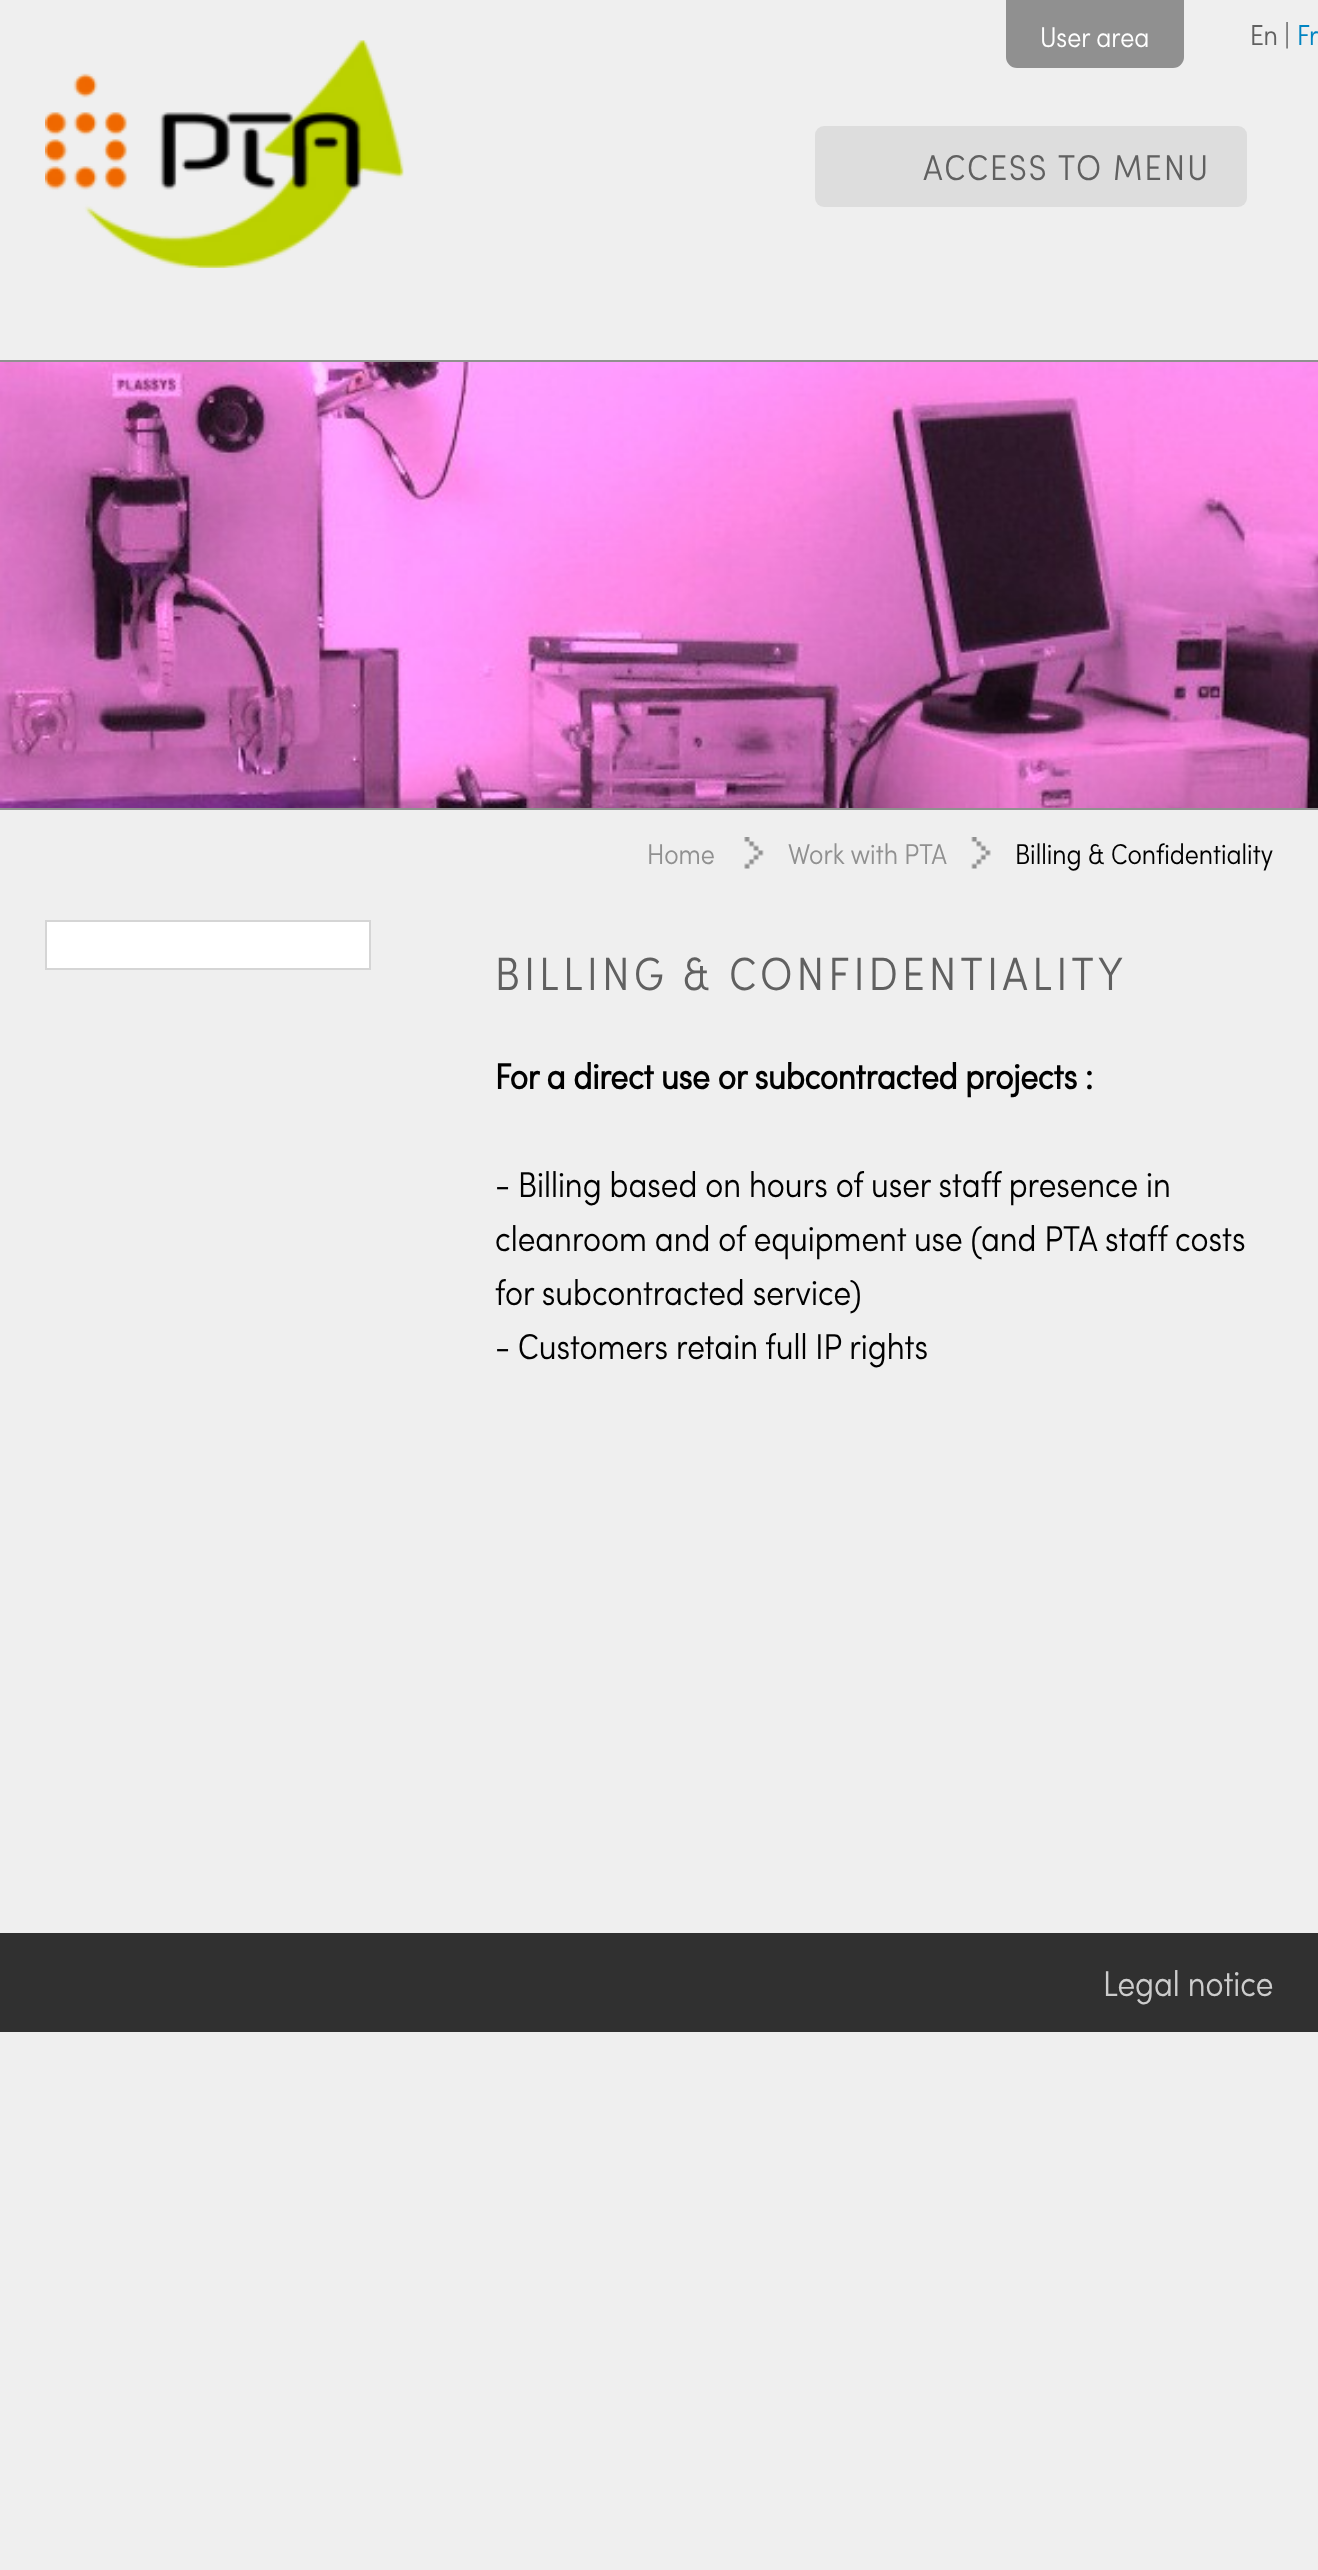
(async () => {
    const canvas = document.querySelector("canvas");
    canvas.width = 1318;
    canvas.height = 2570;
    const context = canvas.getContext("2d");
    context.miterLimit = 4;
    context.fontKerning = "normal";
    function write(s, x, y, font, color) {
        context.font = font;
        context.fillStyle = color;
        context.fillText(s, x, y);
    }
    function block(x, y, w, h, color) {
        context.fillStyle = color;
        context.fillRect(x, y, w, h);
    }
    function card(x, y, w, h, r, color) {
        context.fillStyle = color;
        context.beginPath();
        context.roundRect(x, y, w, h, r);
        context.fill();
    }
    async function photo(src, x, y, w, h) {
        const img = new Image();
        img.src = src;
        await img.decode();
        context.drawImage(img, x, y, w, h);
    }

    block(0, 0, 1318, 2570, "rgb(239, 239, 239)");
    context.fillStyle = "rgb(144, 144, 144)";
    context.beginPath();
    context.roundRect(1006, 0, 178, 68, [0, 0, 11, 11]);
    context.fill();
    write("User area", 1040, 47, "28.75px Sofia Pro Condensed", "rgb(255, 255, 255)");
    write("En |", 1250, 45, "29px Sofia Pro Condensed", "rgb(96, 96, 96)");
    write("Fr", 1297, 45, "29px Sofia Pro Condensed", "rgb(0, 132, 194)");
    await photo("media/1.png", 45, 40, 359, 228);
    card(815, 126, 432, 81, 9, "rgb(221, 221, 221)");
    context.letterSpacing = "2.25px";
    write("ACCESS TO MENU", 923, 180, "36px Sofia Pro Condensed", "rgb(96, 96, 96)");
    await photo("media/2.png", 0, 362, 1318, 446);
    block(0, 360, 1318, 2, "rgb(144, 144, 144)");
    block(0, 808, 1318, 2, "rgb(144, 144, 144)");
    context.letterSpacing = "0px";
    write("Home", 647, 864, "28.75px Sofia Pro Condensed", "rgb(144, 144, 144)");
    await photo("media/3.png", 744, 837, 20, 32);
    write("Work with PTA", 788, 864, "28.75px Sofia Pro Condensed", "rgb(144, 144, 144)");
    await photo("media/4.png", 971, 837, 20, 32);
    write("Billing & Confidentiality", 1015, 864, "28.75px Sofia Pro Condensed", "rgb(0, 0, 0)");
    context.fillStyle = "rgb(255, 255, 255)";
    context.beginPath();
    context.rect(46, 921, 324, 48);
    context.fill();
    context.strokeStyle = "rgb(213, 213, 213)";
    context.lineWidth = 2;
    context.stroke();
    context.letterSpacing = "4.5px";
    write("BILLING & CONFIDENTIALITY", 495, 990, "46.75px Sofia Pro Condensed", "rgb(96, 96, 96)");
    context.letterSpacing = "0px";
    write("For a direct use or subcontracted projects :", 495, 1089, "bold 36px Sofia Pro Condensed", "rgb(0, 0, 0)");
    write("- Billing based on hours of user staff presence in", 495, 1197, "36px Sofia Pro Condensed", "rgb(0, 0, 0)");
    write("cleanroom and of equipment use (and PTA staff costs", 495, 1251, "36px Sofia Pro Condensed", "rgb(0, 0, 0)");
    write("for subcontracted service)", 495, 1305, "36px Sofia Pro Condensed", "rgb(0, 0, 0)");
    write("- Customers retain full IP rights", 495, 1359, "36px Sofia Pro Condensed", "rgb(0, 0, 0)");
    block(0, 1933, 1318, 99, "rgb(48, 48, 48)");
    write("Legal notice", 1103, 1996, "36px Sofia Pro Condensed", "rgb(204, 204, 204)");
})();
